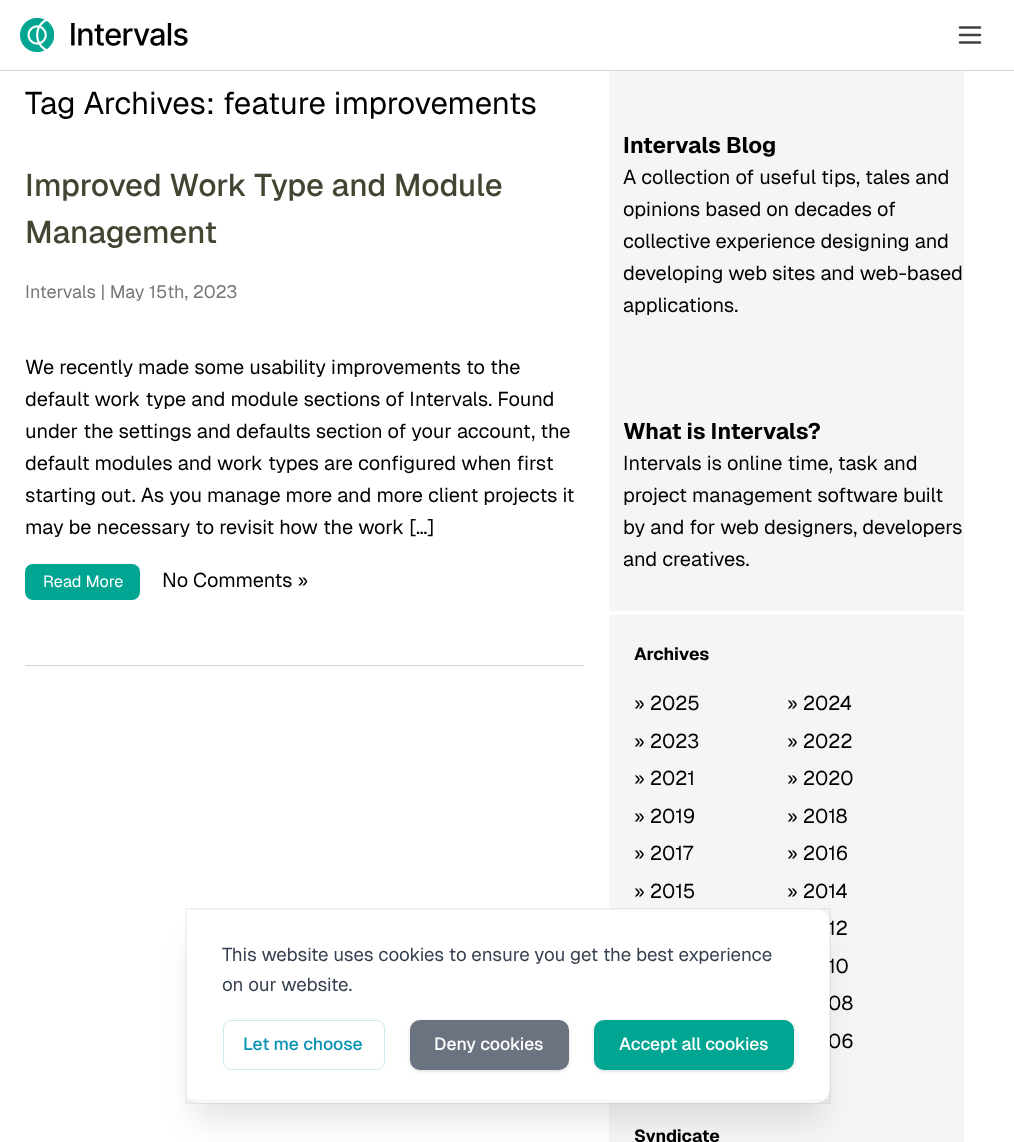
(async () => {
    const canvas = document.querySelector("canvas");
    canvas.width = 1014;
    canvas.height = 1142;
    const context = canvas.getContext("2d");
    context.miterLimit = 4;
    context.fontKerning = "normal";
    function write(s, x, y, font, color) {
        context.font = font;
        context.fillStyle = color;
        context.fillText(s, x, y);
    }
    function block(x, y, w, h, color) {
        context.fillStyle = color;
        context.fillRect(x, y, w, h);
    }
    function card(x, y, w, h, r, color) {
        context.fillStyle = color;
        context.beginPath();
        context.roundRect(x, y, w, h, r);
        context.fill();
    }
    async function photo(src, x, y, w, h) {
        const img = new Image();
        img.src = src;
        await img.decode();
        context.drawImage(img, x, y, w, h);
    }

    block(0, 0, 1014, 1142, "rgb(255, 255, 255)");
    block(0, 70, 1014, 1, "rgb(214, 211, 209)");
    await photo("media/1.png", 20, 18, 168, 34);
    context.beginPath();
    context.moveTo(960, 27.5);
    context.lineTo(980, 27.5);
    context.moveTo(960, 35);
    context.lineTo(980, 35);
    context.moveTo(960, 42.5);
    context.lineTo(980, 42.5);
    context.strokeStyle = "rgb(68, 64, 60)";
    context.lineWidth = 2.5;
    context.lineCap = "round";
    context.lineJoin = "round";
    context.stroke();
    write("Tag Archives: feature improvements", 25, 114, "31.25px Geist", "rgb(0, 0, 0)");
    block(25, 665, 559, 1, "rgb(212, 212, 212)");
    write("Improved Work Type and Module", 25, 196, "500 31.25px Geist", "rgb(68, 68, 51)");
    write("Management", 25, 243, "500 31.25px Geist", "rgb(68, 68, 51)");
    write("Intervals | May 15th, 2023", 25, 298, "18px Geist", "rgb(119, 119, 119)");
    write("We recently made some usability improvements to the", 25, 374, "20px Geist", "rgb(0, 0, 0)");
    write("default work type and module sections of Intervals. Found", 25, 406, "20px Geist", "rgb(0, 0, 0)");
    write("under the settings and defaults section of your account, the", 25, 438, "20px Geist", "rgb(0, 0, 0)");
    write("default modules and work types are configured when first", 25, 470, "20px Geist", "rgb(0, 0, 0)");
    write("starting out. As you manage more and more client projects it", 25, 502, "20px Geist", "rgb(0, 0, 0)");
    write("may be necessary to revisit how the work […]", 25, 534, "20px Geist", "rgb(0, 0, 0)");
    card(25, 564, 115, 36, 8, "rgb(0, 166, 146)");
    write("Read More", 43, 587, "16.25px Geist", "rgb(255, 255, 255)");
    write("No Comments »", 162, 587, "20px Geist", "rgb(0, 0, 0)");
    block(609, 71, 355, 1071, "rgb(245, 245, 244)");
    write("Intervals Blog", 623, 153, "bold 22.5px Geist", "rgb(0, 0, 0)");
    write("A collection of useful tips, tales and", 623, 184, "20px Geist", "rgb(0, 0, 0)");
    write("opinions based on decades of", 623, 216, "20px Geist", "rgb(0, 0, 0)");
    write("collective experience designing and", 623, 248, "20px Geist", "rgb(0, 0, 0)");
    write("developing web sites and web-based", 623, 280, "20px Geist", "rgb(0, 0, 0)");
    write("applications.", 623, 312, "20px Geist", "rgb(0, 0, 0)");
    block(609, 611, 355, 4, "rgb(255, 255, 255)");
    write("What is Intervals?", 623, 439, "bold 22.5px Geist", "rgb(0, 0, 0)");
    write("Intervals is online time, task and", 623, 470, "20px Geist", "rgb(0, 0, 0)");
    write("project management software built", 623, 502, "20px Geist", "rgb(0, 0, 0)");
    write("by and for web designers, developers", 623, 534, "20px Geist", "rgb(0, 0, 0)");
    write("and creatives.", 623, 566, "20px Geist", "rgb(0, 0, 0)");
    write("Archives", 634, 660, "bold 17.5px Geist", "rgb(0, 0, 0)");
    write("» 2025", 634, 710, "20px Geist", "rgb(0, 0, 0)");
    write("» 2024", 787, 710, "20px Geist", "rgb(0, 0, 0)");
    write("» 2023", 634, 748, "20px Geist", "rgb(0, 0, 0)");
    write("» 2022", 787, 748, "20px Geist", "rgb(0, 0, 0)");
    write("» 2021", 634, 785, "20px Geist", "rgb(0, 0, 0)");
    write("» 2020", 787, 785, "20px Geist", "rgb(0, 0, 0)");
    write("» 2019", 634, 823, "20px Geist", "rgb(0, 0, 0)");
    write("» 2018", 787, 823, "20px Geist", "rgb(0, 0, 0)");
    write("» 2017", 634, 860, "20px Geist", "rgb(0, 0, 0)");
    write("» 2016", 787, 860, "20px Geist", "rgb(0, 0, 0)");
    write("» 2015", 634, 898, "20px Geist", "rgb(0, 0, 0)");
    write("» 2014", 787, 898, "20px Geist", "rgb(0, 0, 0)");
    write("12", 828, 935, "20px Geist", "rgb(0, 0, 0)");
    write("10", 828, 973, "20px Geist", "rgb(0, 0, 0)");
    write("08", 828, 1010, "20px Geist", "rgb(0, 0, 0)");
    write("06", 828, 1048, "20px Geist", "rgb(0, 0, 0)");
    write("Syndicate", 634, 1142, "bold 17.5px Geist", "rgb(0, 0, 0)");
    context.strokeStyle = "rgba(0, 0, 0, 0.05)";
    context.lineWidth = 1;
    context.lineJoin = "miter";
    context.strokeRect(185.5, 908.5, 645, 195);
    context.save();
    context.beginPath();
    context.moveTo(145, 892);
    context.lineTo(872, 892);
    context.lineTo(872, 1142);
    context.lineTo(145, 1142);
    context.closePath();
    context.moveTo(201, 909);
    context.lineTo(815, 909);
    context.bezierCurveTo(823.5, 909, 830, 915.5, 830, 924);
    context.lineTo(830, 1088);
    context.bezierCurveTo(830, 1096.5, 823.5, 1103, 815, 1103);
    context.lineTo(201, 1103);
    context.bezierCurveTo(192.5, 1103, 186, 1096.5, 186, 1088);
    context.lineTo(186, 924);
    context.bezierCurveTo(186, 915.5, 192.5, 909, 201, 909);
    context.closePath();
    context.clip("evenodd");
    context.fillStyle = "rgba(0, 0, 0, 0.1)";
    context.filter = "blur(15.5px)";
    context.beginPath();
    context.roundRect(193, 940, 631, 181, 9);
    context.fill();
    context.filter = "none";
    context.restore();
    card(186, 909, 644, 194, 15, "rgba(255, 255, 255, 0.95)");
    context.strokeRect(186.5, 909.5, 643, 193);
    block(188, 1100, 641, 1, "rgba(0, 0, 0, 0.06)");
    write("This website uses cookies to ensure you get the best experience", 222, 961, "18.75px Geist", "rgb(55, 65, 81)");
    write("on our website.", 222, 991, "18.75px Geist", "rgb(55, 65, 81)");
    context.beginPath();
    context.roundRect(223.5, 1020.5, 161, 49, 7.5);
    context.strokeStyle = "rgb(206, 233, 240)";
    context.stroke();
    write("Let me choose", 243, 1050, "500 17.5px Geist", "rgb(8, 145, 178)");
    context.fillStyle = "rgba(0, 0, 0, 0.06)";
    context.filter = "blur(1px)";
    context.beginPath();
    context.roundRect(410, 1021, 159, 50, 10);
    context.fill();
    context.filter = "none";
    context.fillStyle = "rgba(0, 0, 0, 0.1)";
    context.filter = "blur(2px)";
    context.beginPath();
    context.roundRect(410, 1021, 159, 50, 10);
    context.fill();
    context.filter = "none";
    card(410, 1020, 159, 50, 10, "rgb(107, 114, 128)");
    write("Deny cookies", 434, 1050, "500 17.5px Geist", "rgb(255, 255, 255)");
    context.fillStyle = "rgba(0, 0, 0, 0.06)";
    context.filter = "blur(1px)";
    context.beginPath();
    context.roundRect(594, 1021, 200, 50, 10);
    context.fill();
    context.filter = "none";
    context.fillStyle = "rgba(0, 0, 0, 0.1)";
    context.filter = "blur(2px)";
    context.beginPath();
    context.roundRect(594, 1021, 200, 50, 10);
    context.fill();
    context.filter = "none";
    card(594, 1020, 200, 50, 10, "rgb(0, 166, 146)");
    write("Accept all cookies", 619, 1050, "500 17.5px Geist", "rgb(255, 255, 255)");
})();
